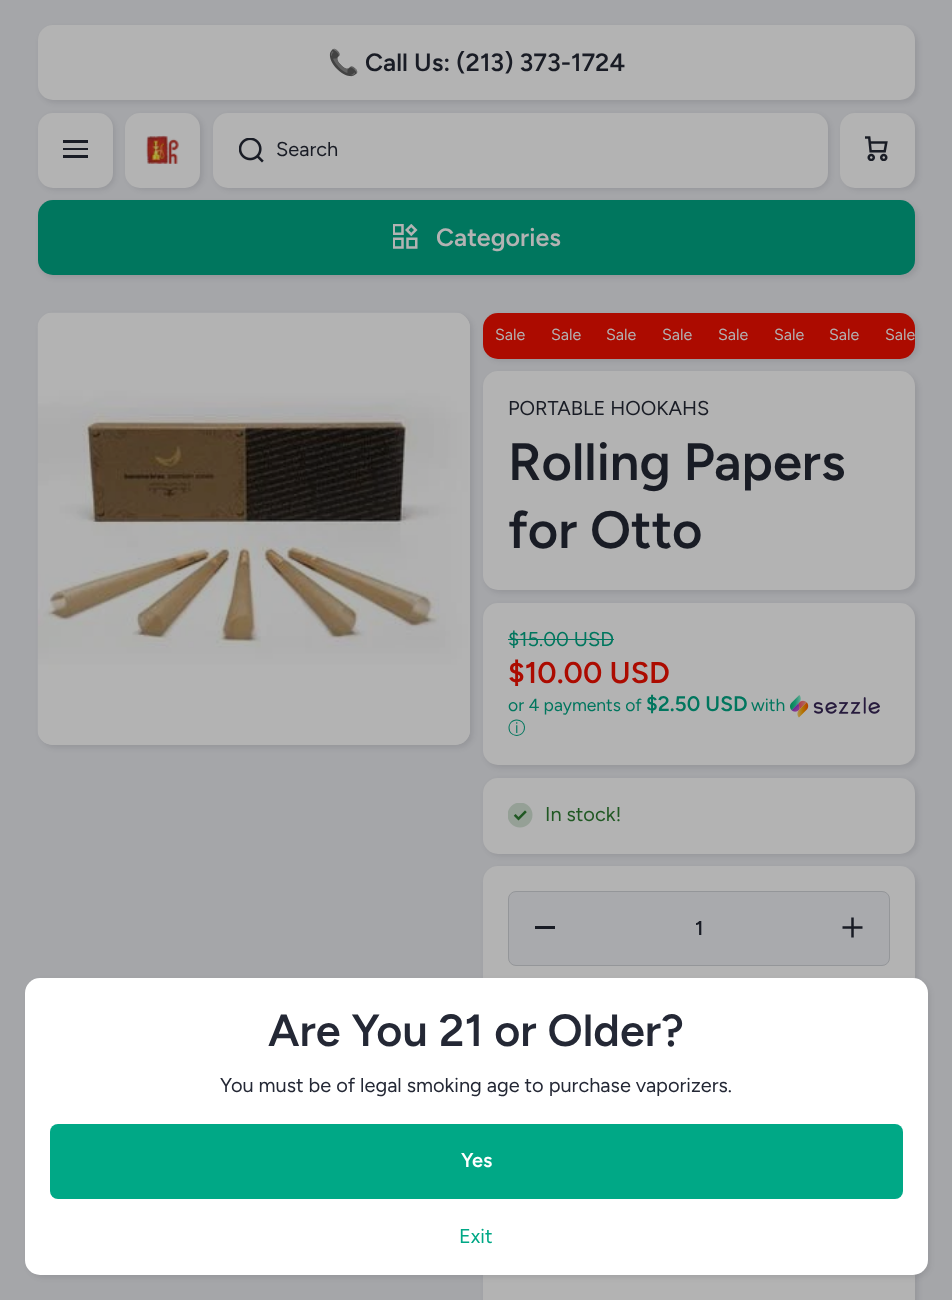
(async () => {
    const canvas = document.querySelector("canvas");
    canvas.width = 952;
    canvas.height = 1300;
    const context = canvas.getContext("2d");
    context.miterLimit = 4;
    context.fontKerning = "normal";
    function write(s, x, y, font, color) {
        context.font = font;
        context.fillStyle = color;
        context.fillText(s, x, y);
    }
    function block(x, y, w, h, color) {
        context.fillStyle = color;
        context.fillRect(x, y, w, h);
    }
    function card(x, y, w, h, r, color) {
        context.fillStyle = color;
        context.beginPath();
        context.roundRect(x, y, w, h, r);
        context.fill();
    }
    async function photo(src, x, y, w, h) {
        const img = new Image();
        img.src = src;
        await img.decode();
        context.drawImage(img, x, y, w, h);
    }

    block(0, 0, 952, 1300, "rgb(165, 166, 169)");
    context.fillStyle = "rgba(25, 28, 37, 0.1)";
    context.filter = "blur(2.5px)";
    context.beginPath();
    context.roundRect(40, 28, 878, 75, 15);
    context.fill();
    context.filter = "none";
    card(38, 25, 877, 75, 15, "rgb(179, 179, 179)");
    write("📞", 328, 71, "bold 25px Noto Color Emoji", "rgb(25, 28, 37)");
    write("Call Us: (213) 373-1724", 365, 71, "600 25px Figtree", "rgb(25, 28, 37)");
    context.fillStyle = "rgba(25, 28, 37, 0.1)";
    context.filter = "blur(2.5px)";
    context.beginPath();
    context.roundRect(40, 115, 75, 75, 15);
    context.fill();
    context.filter = "none";
    card(38, 113, 75, 75, 15, "rgb(179, 179, 179)");
    block(63, 140, 25, 3, "rgb(25, 28, 37)");
    block(63, 148, 25, 2, "rgb(25, 28, 37)");
    block(63, 155, 25, 3, "rgb(25, 28, 37)");
    context.fillStyle = "rgba(25, 28, 37, 0.1)";
    context.filter = "blur(2.5px)";
    context.beginPath();
    context.roundRect(128, 115, 75, 75, 15);
    context.fill();
    context.filter = "none";
    card(125, 113, 75, 75, 15, "rgb(179, 179, 179)");
    await photo("media/1.png", 146, 135, 33, 29);
    context.fillStyle = "rgba(25, 28, 37, 0.1)";
    context.filter = "blur(2.5px)";
    context.beginPath();
    context.roundRect(215, 115, 615, 75, 15);
    context.fill();
    context.filter = "none";
    card(213, 113, 615, 75, 15, "rgb(179, 179, 179)");
    await photo("media/2.png", 239, 138, 25, 25);
    write("Search", 276, 156, "20px Figtree", "rgb(25, 28, 37)");
    context.fillStyle = "rgba(25, 28, 37, 0.1)";
    context.filter = "blur(2.5px)";
    context.beginPath();
    context.roundRect(843, 115, 75, 75, 15);
    context.fill();
    context.filter = "none";
    card(840, 113, 75, 75, 15, "rgb(179, 179, 179)");
    await photo("media/3.png", 865, 136, 23, 25);
    context.fillStyle = "rgba(25, 28, 37, 0.1)";
    context.filter = "blur(2.5px)";
    context.beginPath();
    context.roundRect(40, 203, 878, 75, 15);
    context.fill();
    context.filter = "none";
    card(38, 200, 877, 75, 15, "rgb(0, 118, 94)");
    await photo("media/4.png", 393, 224, 25, 25);
    write("Categories", 436, 246, "600 25px Figtree", "rgb(179, 179, 179)");
    context.fillStyle = "rgba(25, 28, 37, 0.1)";
    context.filter = "blur(2.5px)";
    context.beginPath();
    context.roundRect(40, 315, 433, 433, 15);
    context.fill();
    context.filter = "none";
    card(38, 313, 432, 432, 15, "rgb(179, 179, 179)");
    await photo("media/5.png", 37, 312, 433, 433);
    context.fillStyle = "rgba(25, 28, 37, 0.1)";
    context.filter = "blur(2.5px)";
    context.beginPath();
    context.roundRect(485, 315, 433, 46, 15);
    context.fill();
    context.filter = "none";
    card(483, 313, 432, 46, 15, "rgb(172, 11, 0)");
    write("Sale", 495, 340, "16px Figtree", "rgb(179, 179, 179)");
    write("Sale", 551, 340, "16px Figtree", "rgb(179, 179, 179)");
    write("Sale", 606, 340, "16px Figtree", "rgb(179, 179, 179)");
    write("Sale", 662, 340, "16px Figtree", "rgb(179, 179, 179)");
    write("Sale", 718, 340, "16px Figtree", "rgb(179, 179, 179)");
    write("Sale", 774, 340, "16px Figtree", "rgb(179, 179, 179)");
    write("Sale", 829, 340, "16px Figtree", "rgb(179, 179, 179)");
    write("Sale", 885, 340, "16px Figtree", "rgb(179, 179, 179)");
    context.fillStyle = "rgba(25, 28, 37, 0.1)";
    context.filter = "blur(2.5px)";
    context.beginPath();
    context.roundRect(485, 374, 433, 219, 15);
    context.fill();
    context.filter = "none";
    card(483, 371, 432, 219, 15, "rgb(179, 179, 179)");
    write("PORTABLE HOOKAHS", 508, 415, "20px Figtree", "rgb(25, 28, 37)");
    write("Rolling Papers", 508, 480, "600 52.5px Figtree", "rgb(25, 28, 37)");
    write("for Otto", 508, 548, "600 52.5px Figtree", "rgb(25, 28, 37)");
    context.fillStyle = "rgba(25, 28, 37, 0.1)";
    context.filter = "blur(2.5px)";
    context.beginPath();
    context.roundRect(485, 605, 433, 163, 15);
    context.fill();
    context.filter = "none";
    card(483, 603, 432, 162, 15, "rgb(179, 179, 179)");
    write("$15.00 USD", 508, 646, "20px Figtree", "rgb(0, 118, 94)");
    block(508, 639, 106, 1, "rgb(0, 118, 94)");
    write("$10.00 USD", 508, 683, "600 30px Figtree", "rgb(172, 11, 0)");
    write("or 4 payments of", 508, 711, "17.5px Figtree", "rgb(0, 118, 94)");
    write("$2.50 USD", 646, 711, "600 21px Figtree", "rgb(0, 118, 94)");
    write("with", 751, 711, "17.5px Figtree", "rgb(0, 118, 94)");
    await photo("media/6.png", 790, 695, 90, 23);
    write("ⓘ", 508, 734, "500 17.5px WenQuanYi Zen Hei", "rgb(0, 118, 94)");
    context.fillStyle = "rgba(25, 28, 37, 0.1)";
    context.filter = "blur(2.5px)";
    context.beginPath();
    context.roundRect(485, 780, 433, 76, 15);
    context.fill();
    context.filter = "none";
    card(483, 778, 432, 76, 15, "rgb(179, 179, 179)");
    await photo("media/7.png", 508, 803, 25, 25);
    write("In stock!", 545, 821, "20px Figtree", "rgb(32, 88, 35)");
    context.fillStyle = "rgba(25, 28, 37, 0.1)";
    context.filter = "blur(2.5px)";
    context.beginPath();
    context.roundRect(485, 869, 433, 225, 15);
    context.fill();
    context.filter = "none";
    card(483, 866, 432, 225, 15, "rgb(179, 179, 179)");
    context.fillStyle = "rgb(169, 170, 173)";
    context.beginPath();
    context.roundRect(508.5, 891.5, 381, 74, 7.5);
    context.fill();
    context.strokeStyle = "rgb(148, 150, 153)";
    context.stroke();
    block(535, 926, 20, 3, "rgb(25, 28, 37)");
    write("1", 695, 935, "600 20px Figtree", "rgb(25, 28, 37)");
    await photo("media/8.png", 842, 917, 21, 21);
    context.fillStyle = "rgba(25, 28, 37, 0.1)";
    context.filter = "blur(2.5px)";
    context.beginPath();
    context.roundRect(485, 1220, 433, 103, 15);
    context.fill();
    context.filter = "none";
    block(483, 1274, 432, 26, "rgb(179, 179, 179)");
    context.fillStyle = "rgba(36, 40, 53, 0.1)";
    context.filter = "blur(2.5px)";
    context.beginPath();
    context.roundRect(28, 980, 902, 298, 15);
    context.fill();
    context.filter = "none";
    card(25, 978, 903, 297, 15, "rgb(255, 255, 255)");
    write("Are You 21 or Older?", 268, 1046, "600 45px Figtree", "rgb(36, 40, 53)");
    write("You must be of legal smoking age to purchase vaporizers.", 220, 1092, "20px Figtree", "rgb(36, 40, 53)");
    card(50, 1124, 853, 75, 8, "rgb(0, 168, 134)");
    write("Yes", 461, 1167, "600 20px Figtree", "rgb(255, 255, 255)");
    write("Exit", 459, 1243, "20px Figtree", "rgb(0, 168, 134)");
})();
